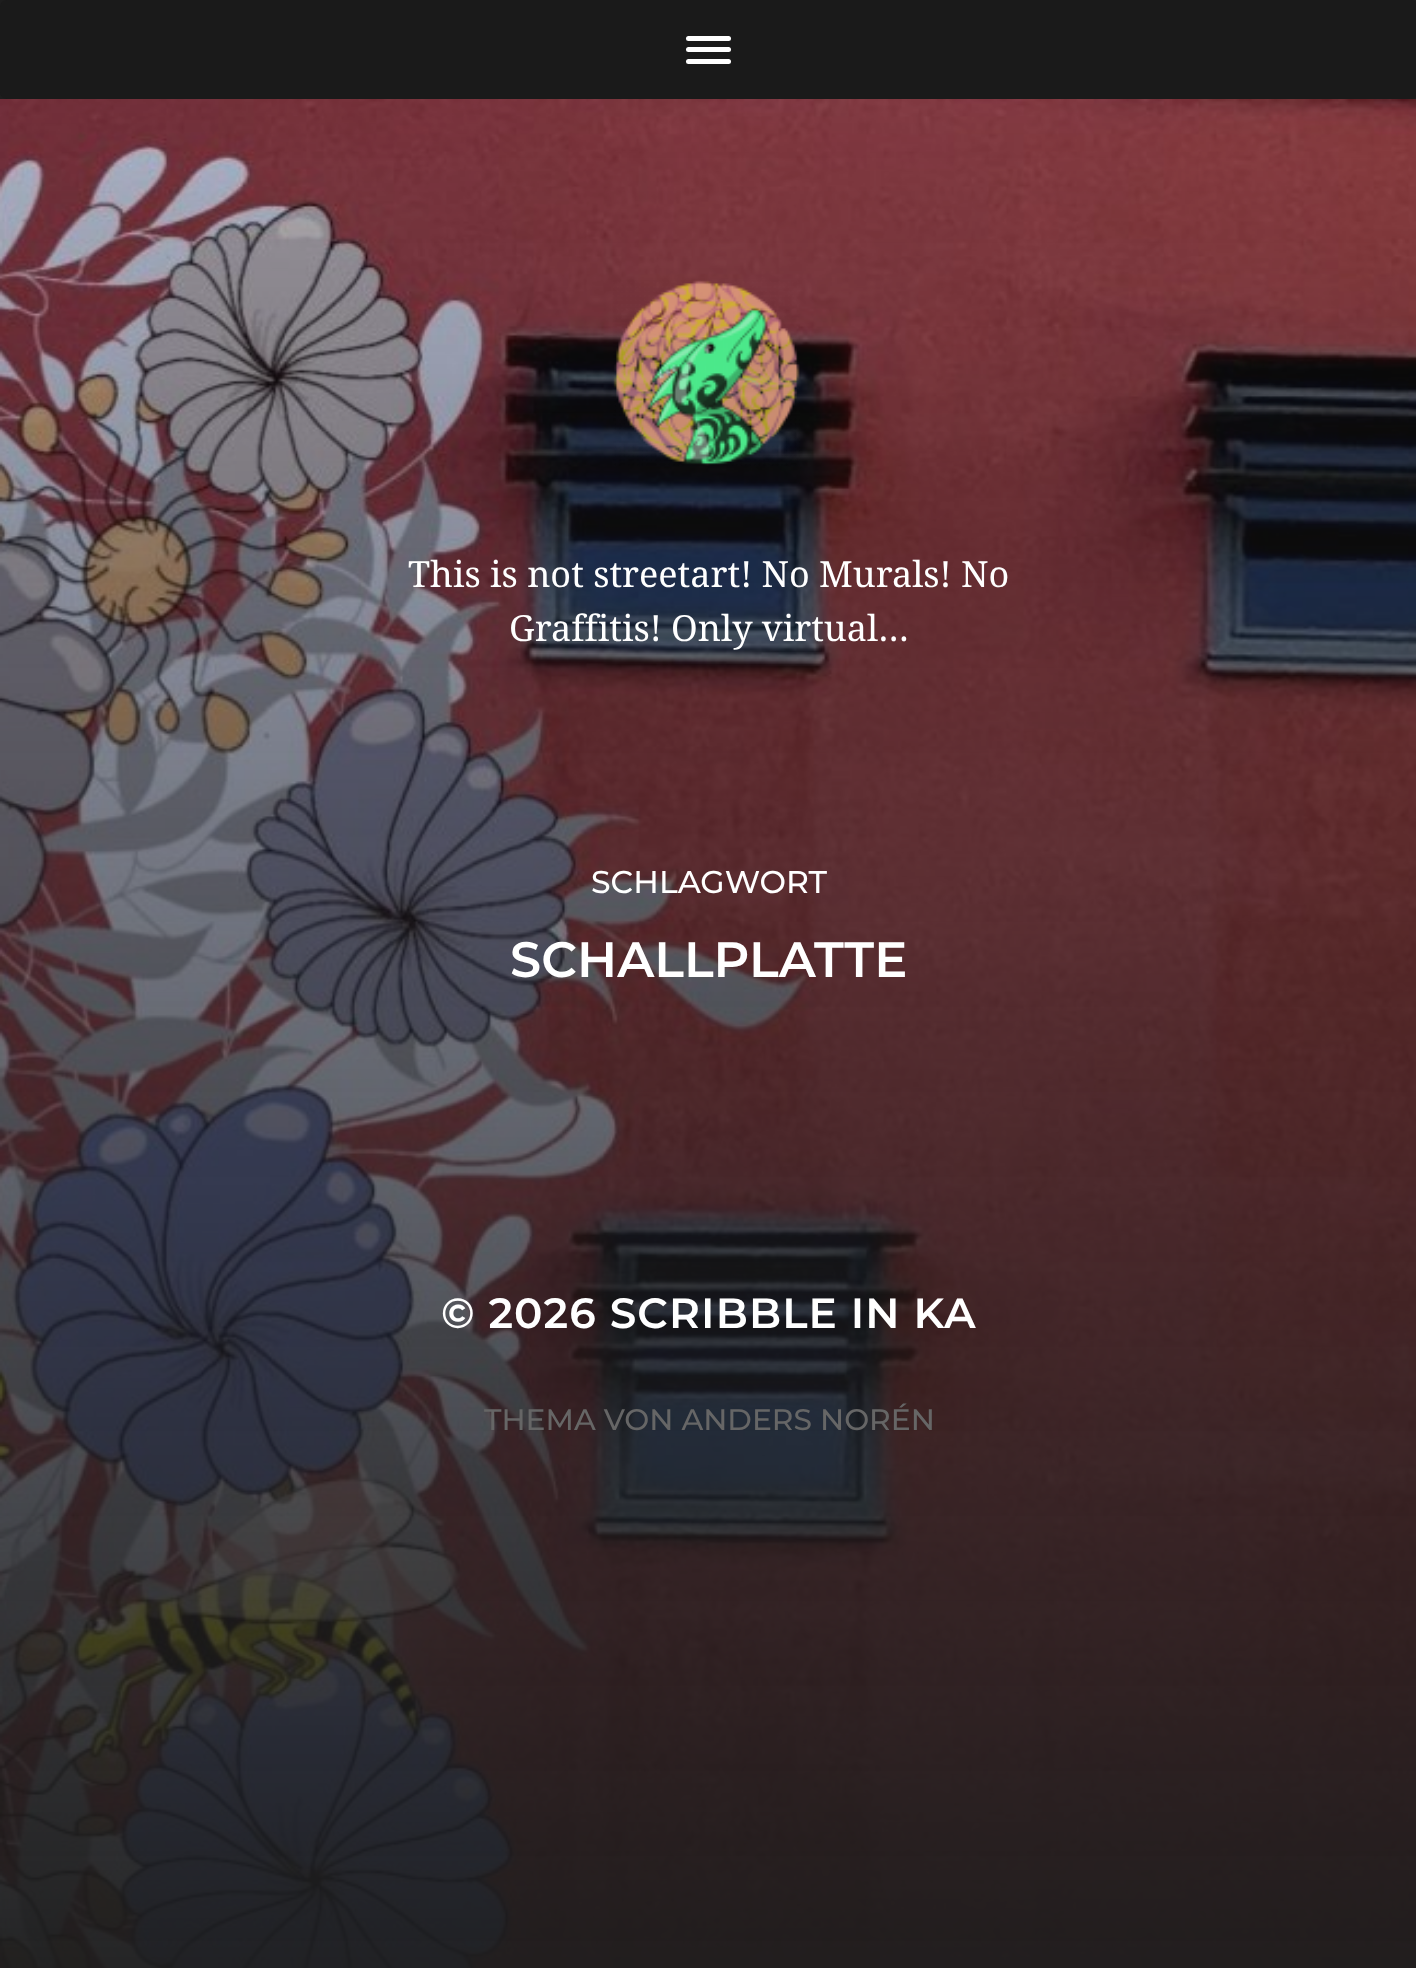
(async () => {
    const canvas = document.querySelector("canvas");
    canvas.width = 1416;
    canvas.height = 1968;
    const context = canvas.getContext("2d");
    context.miterLimit = 4;
    context.fontKerning = "normal";
    function write(s, x, y, font, color) {
        context.font = font;
        context.fillStyle = color;
        context.fillText(s, x, y);
    }
    function block(x, y, w, h, color) {
        context.fillStyle = color;
        context.fillRect(x, y, w, h);
    }
    function card(x, y, w, h, r, color) {
        context.fillStyle = color;
        context.beginPath();
        context.roundRect(x, y, w, h, r);
        context.fill();
    }
    async function photo(src, x, y, w, h) {
        const img = new Image();
        img.src = src;
        await img.decode();
        context.drawImage(img, x, y, w, h);
    }

    block(0, 0, 1416, 1968, "rgb(29, 29, 29)");
    card(0, 0, 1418, 99, 7, "rgb(26, 26, 26)");
    card(686, 36, 45, 5, 2.5, "rgb(255, 255, 255)");
    card(686, 47, 45, 5, 2.5, "rgb(255, 255, 255)");
    card(686, 59, 45, 5, 2.5, "rgb(255, 255, 255)");
    await photo("media/1.png", 0, 99, 1416, 1869);
    await photo("media/2.png", 613, 280, 187, 186);
    write("This is not streetart! No Murals! No", 408, 587, "36px Droid Serif", "rgb(255, 255, 255)");
    write("Graffitis! Only virtual...", 509, 641, "36px Droid Serif", "rgb(255, 255, 255)");
    write("SCHLAGWORT", 591, 893, "100 31.5px Montserrat", "rgb(255, 255, 255)");
    write("SCHALLPLATTE", 510, 977, "100 49.5px 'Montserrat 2'", "rgb(255, 255, 255)");
    context.letterSpacing = "1.1px";
    write("© 2026 SCRIBBLE IN KA", 441, 1328, "100 42.25px 'Montserrat 2'", "rgb(255, 255, 255)");
    context.letterSpacing = "0px";
    write("THEMA VON ANDERS NORÉN", 484, 1430, "100 29.75px Montserrat", "rgb(102, 102, 102)");
})();
